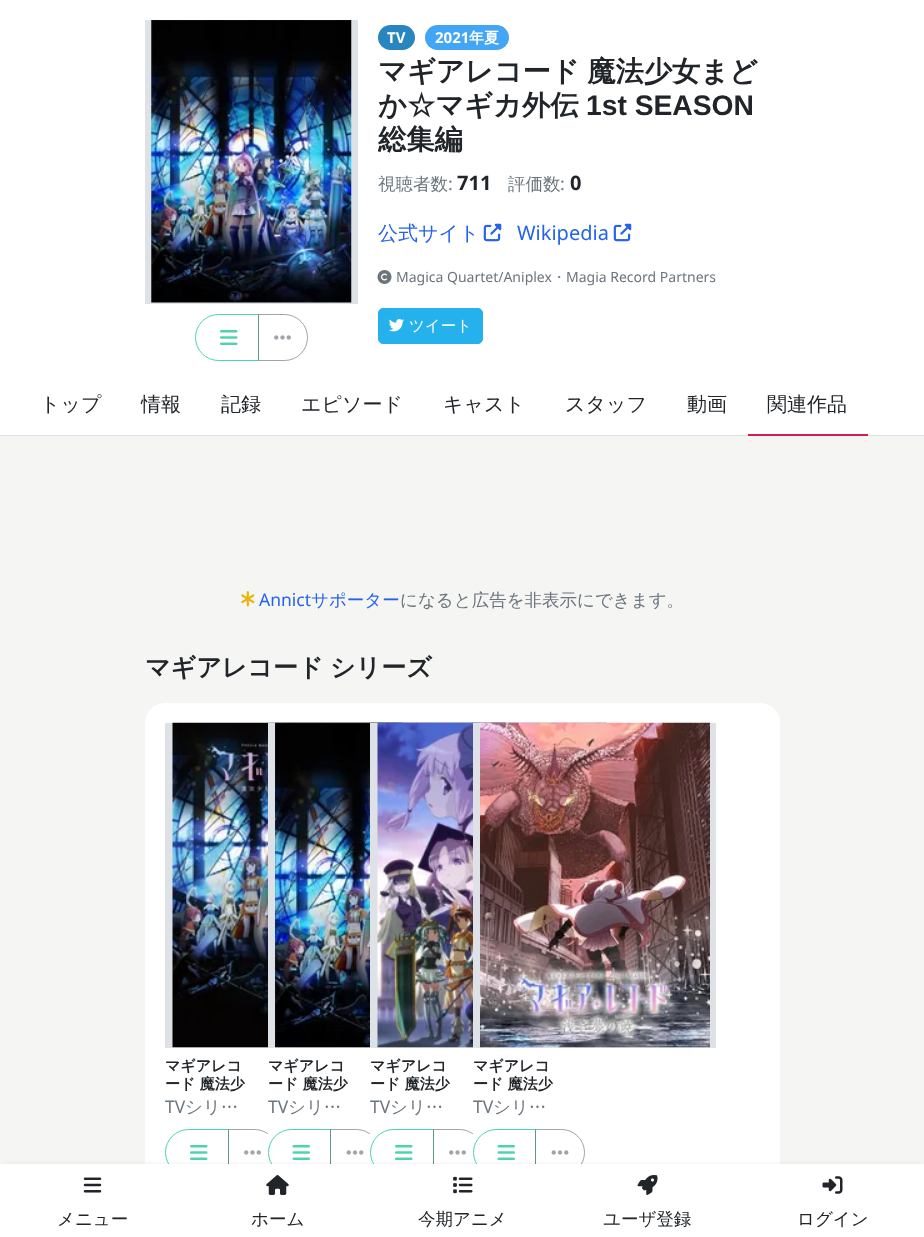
(async () => {
    const canvas = document.querySelector("canvas");
    canvas.width = 924;
    canvas.height = 1237;
    const context = canvas.getContext("2d");
    context.miterLimit = 4;
    context.fontKerning = "normal";
    function write(s, x, y, font, color) {
        context.font = font;
        context.fillStyle = color;
        context.fillText(s, x, y);
    }
    function block(x, y, w, h, color) {
        context.fillStyle = color;
        context.fillRect(x, y, w, h);
    }
    function card(x, y, w, h, r, color) {
        context.fillStyle = color;
        context.beginPath();
        context.roundRect(x, y, w, h, r);
        context.fill();
    }
    async function photo(src, x, y, w, h) {
        const img = new Image();
        img.src = src;
        await img.decode();
        context.drawImage(img, x, y, w, h);
    }

    block(0, 0, 924, 1237, "rgb(245, 245, 244)");
    block(0, 0, 924, 435, "rgb(255, 255, 255)");
    block(145, 20, 213, 284, "rgb(222, 226, 230)");
    await photo("media/1.png", 151, 20, 201, 283);
    context.beginPath();
    context.roundRect(195.5, 314.5, 63, 46, [23, 0, 0, 23]);
    context.strokeStyle = "rgb(77, 212, 172)";
    context.stroke();
    await photo("media/2.png", 220, 330, 18, 15);
    context.beginPath();
    context.roundRect(258.5, 314.5, 49, 46, [0, 23, 23, 0]);
    context.strokeStyle = "rgba(108, 117, 125, 0.65)";
    context.stroke();
    await photo("media/3.png", 274, 335, 17, 5);
    card(378, 25, 37, 25, 12.5, "rgb(41, 133, 190)");
    write("TV", 387, 43, "bold 15px Noto Sans", "rgb(255, 255, 255)");
    card(425, 25, 84, 25, 12.5, "rgb(66, 165, 245)");
    write("2021", 435, 43, "bold 15px Noto Sans", "rgb(255, 255, 255)");
    write("年夏", 469, 43, "bold 15px WenQuanYi Zen Hei", "rgb(255, 255, 255)");
    context.wordSpacing = "-1px";
    write("マギアレコード 魔法少女まど", 378, 81, "bold 28.25px WenQuanYi Zen Hei", "rgb(33, 37, 41)");
    context.wordSpacing = "0px";
    write("か☆マギカ外伝", 378, 115, "bold 28.25px WenQuanYi Zen Hei", "rgb(33, 37, 41)");
    write("1st SEASON", 586, 115, "bold 28.25px Liberation Sans", "rgb(33, 37, 41)");
    write("総集編", 378, 149, "bold 28.25px WenQuanYi Zen Hei", "rgb(33, 37, 41)");
    write("視聴者数", 378, 190, "500 17.5px WenQuanYi Zen Hei", "rgb(108, 117, 125)");
    write(":", 448, 190, "17.5px Noto Sans", "rgb(108, 117, 125)");
    write("711", 457, 190, "bold 20px Noto Sans", "rgb(33, 37, 41)");
    write("評価数", 508, 190, "500 17.5px WenQuanYi Zen Hei", "rgb(108, 117, 125)");
    write(":", 560, 190, "17.5px Noto Sans", "rgb(108, 117, 125)");
    write("0", 570, 190, "bold 20px Noto Sans", "rgb(33, 37, 41)");
    write("公式サイト", 378, 240, "500 20px WenQuanYi Zen Hei", "rgb(37, 99, 235)");
    await photo("media/4.png", 483, 223, 19, 19);
    write("Wikipedia", 517, 240, "20px Noto Sans", "rgb(37, 99, 235)");
    await photo("media/4.png", 613, 223, 19, 19);
    await photo("media/5.png", 377, 270, 15, 14);
    write("Magica Quartet/Aniplex", 396, 282, "14px Noto Sans", "rgb(108, 117, 125)");
    write("・", 552, 282, "500 14px WenQuanYi Zen Hei", "rgb(108, 117, 125)");
    write("Magia Record Partners", 566, 282, "14px Noto Sans", "rgb(108, 117, 125)");
    context.fillStyle = "rgb(36, 177, 236)";
    context.beginPath();
    context.roundRect(378.5, 308.5, 104, 35, 4.5);
    context.fill();
    context.strokeStyle = "rgb(36, 177, 236)";
    context.stroke();
    await photo("media/6.png", 389, 319, 15, 13);
    write("ツイート", 409, 331, "500 15.5px WenQuanYi Zen Hei", "rgb(255, 255, 255)");
    block(0, 435, 924, 1, "rgb(222, 226, 230)");
    write("トップ", 40, 411, "500 20px WenQuanYi Zen Hei", "rgb(33, 37, 41)");
    write("情報", 141, 411, "500 20px WenQuanYi Zen Hei", "rgb(33, 37, 41)");
    write("記録", 221, 411, "500 20px WenQuanYi Zen Hei", "rgb(33, 37, 41)");
    write("エピソード", 301, 411, "500 20px WenQuanYi Zen Hei", "rgb(33, 37, 41)");
    write("キャスト", 443, 411, "500 20px WenQuanYi Zen Hei", "rgb(33, 37, 41)");
    write("スタッフ", 565, 411, "500 20px WenQuanYi Zen Hei", "rgb(33, 37, 41)");
    write("動画", 687, 411, "500 20px WenQuanYi Zen Hei", "rgb(33, 37, 41)");
    block(748, 434, 120, 2, "rgb(213, 28, 91)");
    write("関連作品", 767, 411, "500 20px WenQuanYi Zen Hei", "rgb(33, 37, 41)");
    await photo("media/7.png", 241, 591, 14, 16);
    write("Annict", 259, 606, "17.5px Noto Sans", "rgb(37, 99, 235)");
    write("サポーター", 311, 606, "500 17.5px WenQuanYi Zen Hei", "rgb(37, 99, 235)");
    write("になると広告を非表示にできます。", 400, 606, "500 17.5px WenQuanYi Zen Hei", "rgb(108, 117, 125)");
    context.wordSpacing = "-1px";
    write("マギアレコード シリーズ", 145, 676, "bold 25px WenQuanYi Zen Hei", "rgb(33, 37, 41)");
    card(145, 703, 635, 493, 20, "rgb(255, 255, 255)");
    block(165, 723, 103, 325, "rgb(222, 226, 230)");
    await photo("media/8.png", 172, 722, 231, 326);
    context.wordSpacing = "0px";
    write("マギアレコ", 165, 1071, "bold 15px WenQuanYi Zen Hei", "rgb(33, 37, 41)");
    write("ード 魔法少", 165, 1089, "bold 15px WenQuanYi Zen Hei", "rgb(33, 37, 41)");
    write("TV", 165, 1113, "17.5px Noto Sans", "rgb(108, 117, 125)");
    write("シリ…", 185, 1113, "500 17.5px WenQuanYi Zen Hei", "rgb(108, 117, 125)");
    context.beginPath();
    context.roundRect(165.5, 1129.5, 63, 46, [23, 0, 0, 23]);
    context.strokeStyle = "rgb(77, 212, 172)";
    context.stroke();
    await photo("media/2.png", 190, 1145, 18, 15);
    context.beginPath();
    context.roundRect(228.5, 1129.5, 49, 46, [0, 23, 23, 0]);
    context.strokeStyle = "rgba(108, 117, 125, 0.65)";
    context.stroke();
    await photo("media/3.png", 244, 1150, 17, 5);
    card(268, 723, 82, 453, 20, "rgb(255, 255, 255)");
    block(268, 723, 102, 325, "rgb(222, 226, 230)");
    await photo("media/9.png", 275, 722, 230, 326);
    write("マギアレコ", 268, 1071, "bold 15px WenQuanYi Zen Hei", "rgb(33, 37, 41)");
    write("ード 魔法少", 268, 1089, "bold 15px WenQuanYi Zen Hei", "rgb(33, 37, 41)");
    write("TV", 268, 1113, "17.5px Noto Sans", "rgb(108, 117, 125)");
    write("シリ…", 288, 1113, "500 17.5px WenQuanYi Zen Hei", "rgb(108, 117, 125)");
    context.beginPath();
    context.roundRect(268.5, 1129.5, 62, 46, [23, 0, 0, 23]);
    context.strokeStyle = "rgb(77, 212, 172)";
    context.stroke();
    await photo("media/10.png", 292, 1145, 18, 15);
    context.beginPath();
    context.roundRect(330.5, 1129.5, 49, 46, [0, 23, 23, 0]);
    context.strokeStyle = "rgba(108, 117, 125, 0.65)";
    context.stroke();
    await photo("media/11.png", 346, 1150, 18, 5);
    card(370, 723, 83, 453, 20, "rgb(255, 255, 255)");
    block(370, 723, 103, 325, "rgb(222, 226, 230)");
    await photo("media/12.png", 377, 722, 230, 326);
    write("マギアレコ", 370, 1071, "bold 15px WenQuanYi Zen Hei", "rgb(33, 37, 41)");
    write("ード 魔法少", 370, 1089, "bold 15px WenQuanYi Zen Hei", "rgb(33, 37, 41)");
    write("TV", 370, 1113, "17.5px Noto Sans", "rgb(108, 117, 125)");
    write("シリ…", 390, 1113, "500 17.5px WenQuanYi Zen Hei", "rgb(108, 117, 125)");
    context.beginPath();
    context.roundRect(370.5, 1129.5, 63, 46, [23, 0, 0, 23]);
    context.strokeStyle = "rgb(77, 212, 172)";
    context.stroke();
    await photo("media/2.png", 395, 1145, 18, 15);
    context.beginPath();
    context.roundRect(433.5, 1129.5, 49, 46, [0, 23, 23, 0]);
    context.strokeStyle = "rgba(108, 117, 125, 0.65)";
    context.stroke();
    await photo("media/3.png", 449, 1150, 17, 5);
    card(473, 723, 82, 453, 20, "rgb(255, 255, 255)");
    block(473, 723, 243, 325, "rgb(222, 226, 230)");
    await photo("media/13.png", 480, 722, 230, 326);
    write("マギアレコ", 473, 1071, "bold 15px WenQuanYi Zen Hei", "rgb(33, 37, 41)");
    write("ード 魔法少", 473, 1089, "bold 15px WenQuanYi Zen Hei", "rgb(33, 37, 41)");
    write("TV", 473, 1113, "17.5px Noto Sans", "rgb(108, 117, 125)");
    write("シリ…", 493, 1113, "500 17.5px WenQuanYi Zen Hei", "rgb(108, 117, 125)");
    context.beginPath();
    context.roundRect(473.5, 1129.5, 62, 46, [23, 0, 0, 23]);
    context.strokeStyle = "rgb(77, 212, 172)";
    context.stroke();
    await photo("media/10.png", 497, 1145, 18, 15);
    context.beginPath();
    context.roundRect(535.5, 1129.5, 49, 46, [0, 23, 23, 0]);
    context.strokeStyle = "rgba(108, 117, 125, 0.65)";
    context.stroke();
    await photo("media/11.png", 551, 1150, 18, 5);
    context.fillStyle = "rgba(0, 0, 0, 0.07)";
    context.filter = "blur(2.5px)";
    context.beginPath();
    context.rect(3, 1164, 920, 69);
    context.fill();
    context.filter = "none";
    block(0, 1164, 924, 73, "rgb(255, 255, 255)");
    await photo("media/14.png", 83, 1177, 19, 16);
    write("メニュー", 57, 1225, "500 17.5px WenQuanYi Zen Hei", "rgb(33, 37, 41)");
    await photo("media/15.png", 266, 1175, 23, 20);
    write("ホーム", 251, 1225, "500 17.5px WenQuanYi Zen Hei", "rgb(33, 37, 41)");
    await photo("media/16.png", 453, 1176, 20, 18);
    write("今期アニメ", 418, 1225, "500 17.5px WenQuanYi Zen Hei", "rgb(33, 37, 41)");
    await photo("media/17.png", 637, 1175, 21, 20);
    write("ユーザ登録", 603, 1225, "500 17.5px WenQuanYi Zen Hei", "rgb(33, 37, 41)");
    await photo("media/18.png", 822, 1176, 21, 18);
    write("ログイン", 797, 1225, "500 17.5px WenQuanYi Zen Hei", "rgb(33, 37, 41)");
})();
